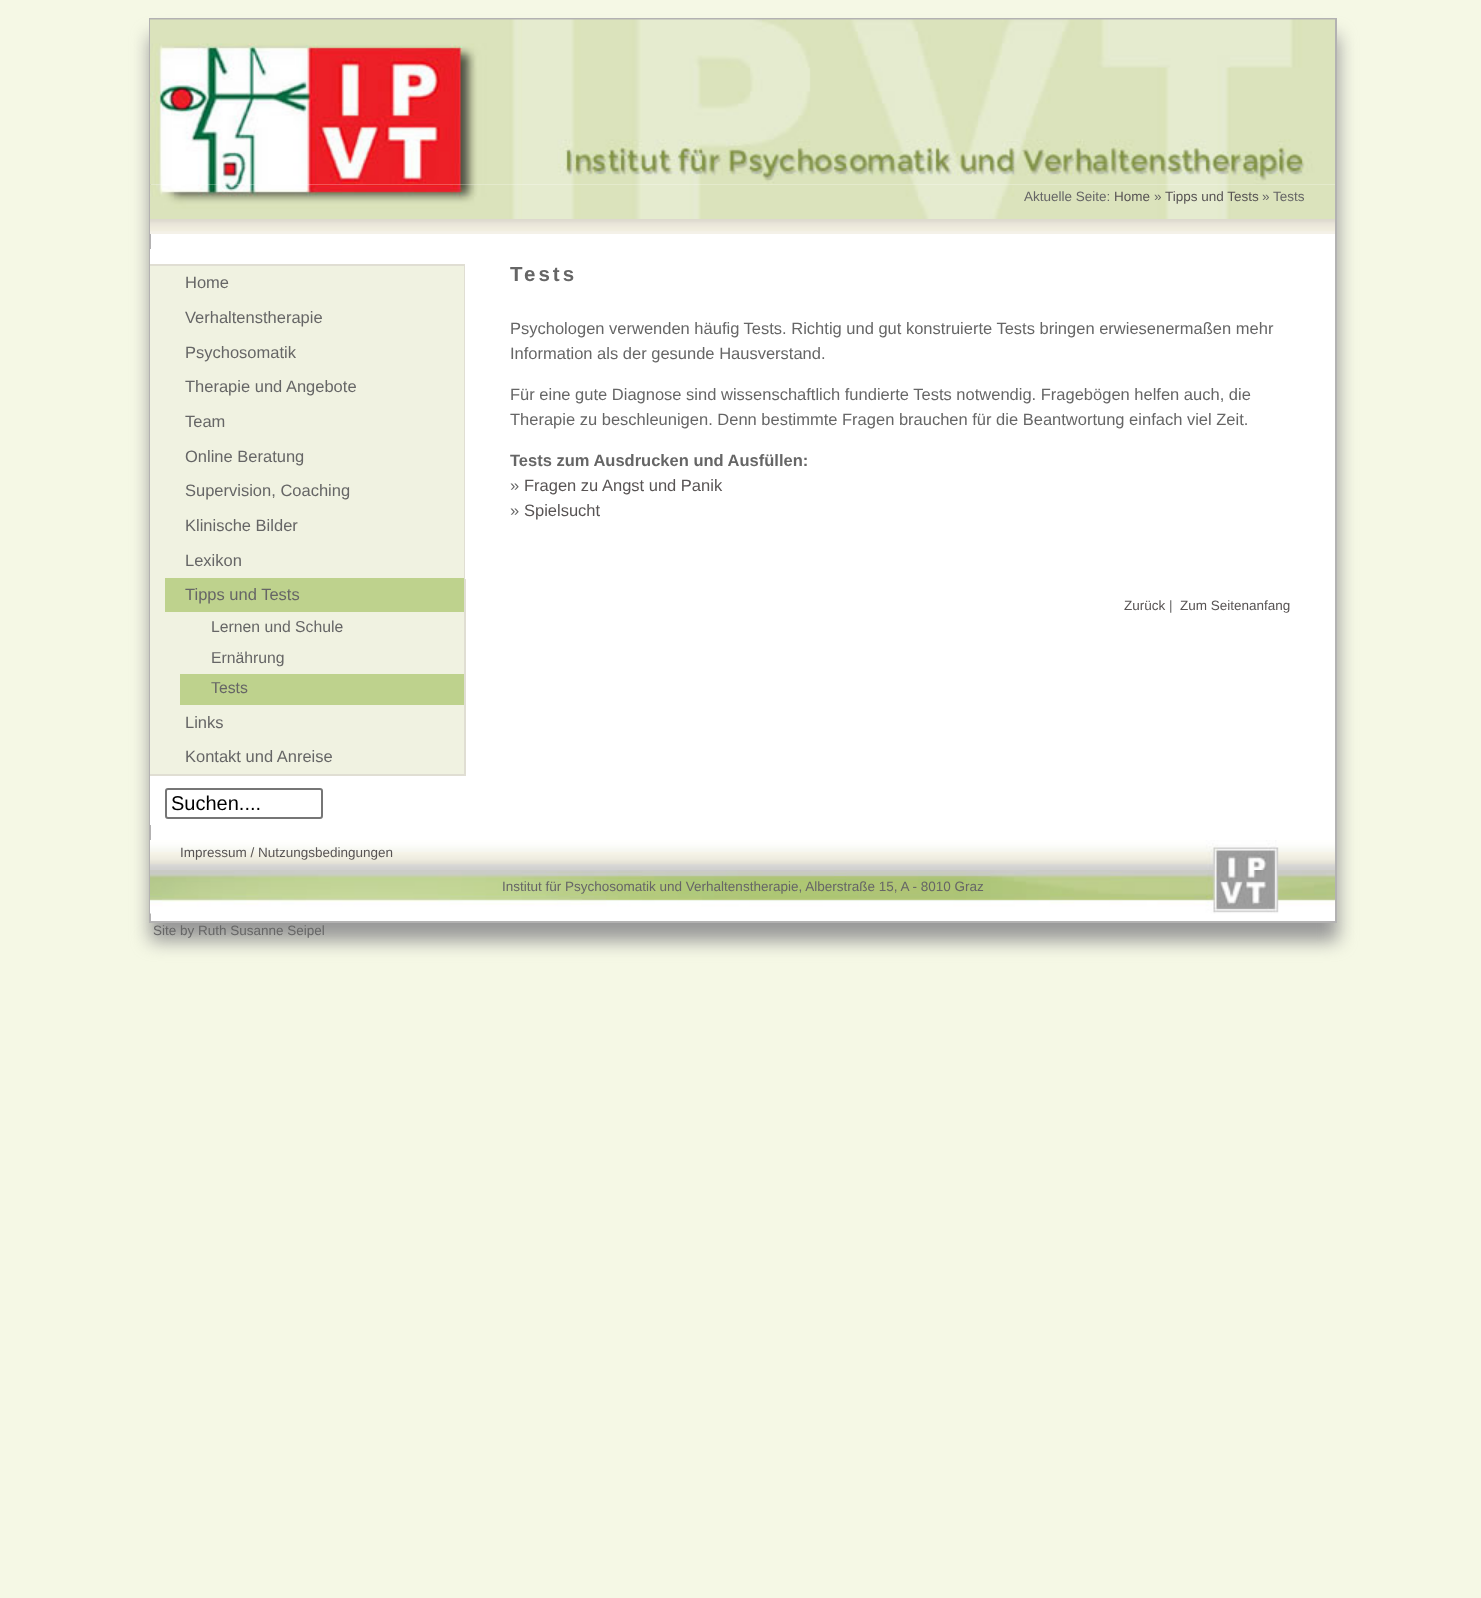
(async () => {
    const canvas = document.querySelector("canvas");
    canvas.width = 1481;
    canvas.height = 1598;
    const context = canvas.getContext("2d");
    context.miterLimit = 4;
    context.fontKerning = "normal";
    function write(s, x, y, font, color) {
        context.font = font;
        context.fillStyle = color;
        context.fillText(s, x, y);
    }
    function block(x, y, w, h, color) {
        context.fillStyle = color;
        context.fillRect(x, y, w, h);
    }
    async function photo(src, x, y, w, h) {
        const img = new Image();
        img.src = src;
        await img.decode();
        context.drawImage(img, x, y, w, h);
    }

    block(0, 0, 1481, 1598, "rgb(245, 248, 229)");
    context.fillStyle = "rgb(153, 153, 153)";
    context.filter = "blur(9px)";
    context.beginPath();
    context.rect(150, 36, 1188, 905);
    context.fill();
    context.filter = "none";
    block(151, 184, 1184, 737, "rgb(255, 255, 255)");
    context.strokeStyle = "rgb(179, 178, 178)";
    context.lineWidth = 2;
    context.strokeRect(150, 19, 1186, 903);
    await photo("media/1.png", 150, 19, 1185, 166);
    await photo("media/2.png", 150, 184, 1185, 35);
    write("Aktuelle Seite:", 1024, 201, "13.5px Liberation Sans", "rgb(102, 102, 102)");
    write("Home", 1114, 201, "13.5px Liberation Sans", "rgb(88, 84, 84)");
    write("»", 1154, 201, "13.5px Liberation Sans", "rgb(102, 102, 102)");
    write("Tipps und Tests", 1165, 201, "13.5px Liberation Sans", "rgb(88, 84, 84)");
    write("» Tests", 1262, 201, "13.5px Liberation Sans", "rgb(102, 102, 102)");
    await photo("media/3.png", 150, 219, 1185, 15);
    block(150, 249, 1, 576, "rgb(255, 255, 255)");
    block(150, 266, 314, 508, "rgb(240, 242, 225)");
    block(150, 264, 315, 2, "rgb(224, 222, 211)");
    block(464, 264, 2, 512, "rgb(224, 222, 211)");
    block(150, 774, 315, 2, "rgb(224, 222, 211)");
    write("Home", 185, 288, "16.5px Liberation Sans", "rgb(102, 102, 102)");
    write("Verhaltenstherapie", 185, 323, "16.5px Liberation Sans", "rgb(102, 102, 102)");
    write("Psychosomatik", 185, 358, "16.5px Liberation Sans", "rgb(102, 102, 102)");
    write("Therapie und Angebote", 185, 392, "16.5px Liberation Sans", "rgb(102, 102, 102)");
    write("Team", 185, 427, "16.5px Liberation Sans", "rgb(102, 102, 102)");
    write("Online Beratung", 185, 462, "16.5px Liberation Sans", "rgb(102, 102, 102)");
    write("Supervision, Coaching", 185, 496, "16.5px Liberation Sans", "rgb(102, 102, 102)");
    write("Klinische Bilder", 185, 531, "16.5px Liberation Sans", "rgb(102, 102, 102)");
    write("Lexikon", 185, 566, "16.5px Liberation Sans", "rgb(102, 102, 102)");
    block(165, 578, 299, 34, "rgb(190, 210, 141)");
    write("Tipps und Tests", 185, 600, "16.5px Liberation Sans", "rgb(102, 102, 102)");
    write("Lernen und Schule", 211, 632, "15.75px Liberation Sans", "rgb(102, 102, 102)");
    write("Ernährung", 211, 663, "15.75px Liberation Sans", "rgb(102, 102, 102)");
    block(180, 674, 284, 31, "rgb(190, 210, 141)");
    write("Tests", 211, 693, "15.75px Liberation Sans", "rgb(102, 102, 102)");
    write("Links", 185, 728, "16.5px Liberation Sans", "rgb(102, 102, 102)");
    write("Kontakt und Anreise", 185, 762, "16.5px Liberation Sans", "rgb(102, 102, 102)");
    context.beginPath();
    context.roundRect(166, 789, 156, 29, 2);
    context.strokeStyle = "rgb(118, 118, 118)";
    context.stroke();
    write("Suchen....", 171, 810, "20px Liberation Sans", "rgb(0, 0, 0)");
    block(465, 264, 1, 315, "rgb(255, 255, 255)");
    context.letterSpacing = "3px";
    write("Tests", 510, 281, "bold 20.5px Liberation Sans", "rgb(102, 102, 102)");
    context.letterSpacing = "0px";
    write("Psychologen verwenden häufig Tests. Richtig und gut konstruierte Tests bringen erwiesenermaßen mehr", 510, 334, "16.5px Liberation Sans", "rgb(102, 102, 102)");
    write("Information als der gesunde Hausverstand.", 510, 359, "16.5px Liberation Sans", "rgb(102, 102, 102)");
    write("Für eine gute Diagnose sind wissenschaftlich fundierte Tests notwendig. Fragebögen helfen auch, die", 510, 400, "16.5px Liberation Sans", "rgb(102, 102, 102)");
    write("Therapie zu beschleunigen. Denn bestimmte Fragen brauchen für die Beantwortung einfach viel Zeit.", 510, 425, "16.5px Liberation Sans", "rgb(102, 102, 102)");
    write("Tests zum Ausdrucken und Ausfüllen:", 510, 466, "bold 16.5px Liberation Sans", "rgb(102, 102, 102)");
    write("»", 510, 491, "16.5px Liberation Sans", "rgb(102, 102, 102)");
    write("Fragen zu Angst und Panik", 524, 491, "16.5px Liberation Sans", "rgb(88, 84, 84)");
    write("»", 510, 516, "16.5px Liberation Sans", "rgb(102, 102, 102)");
    write("Spielsucht", 524, 516, "16.5px Liberation Sans", "rgb(88, 84, 84)");
    write("Zurück", 1124, 610, "13.5px Liberation Sans", "rgb(88, 84, 84)");
    write("|", 1169, 610, "13.5px Liberation Sans", "rgb(102, 102, 102)");
    write("Zum Seitenanfang", 1180, 610, "13.5px Liberation Sans", "rgb(88, 84, 84)");
    await photo("media/4.png", 150, 840, 1185, 30);
    write("Impressum / Nutzungsbedingungen", 180, 857, "13.5px Liberation Sans", "rgb(88, 84, 84)");
    await photo("media/5.png", 150, 870, 1185, 44);
    write("Institut für Psychosomatik und Verhaltenstherapie, Alberstraße 15, A - 8010 Graz", 502, 891, "13.5px Liberation Sans", "rgb(102, 102, 102)");
    write("Site by Ruth Susanne Seipel", 153, 935, "13.5px Liberation Sans", "rgb(102, 102, 102)");
})();
